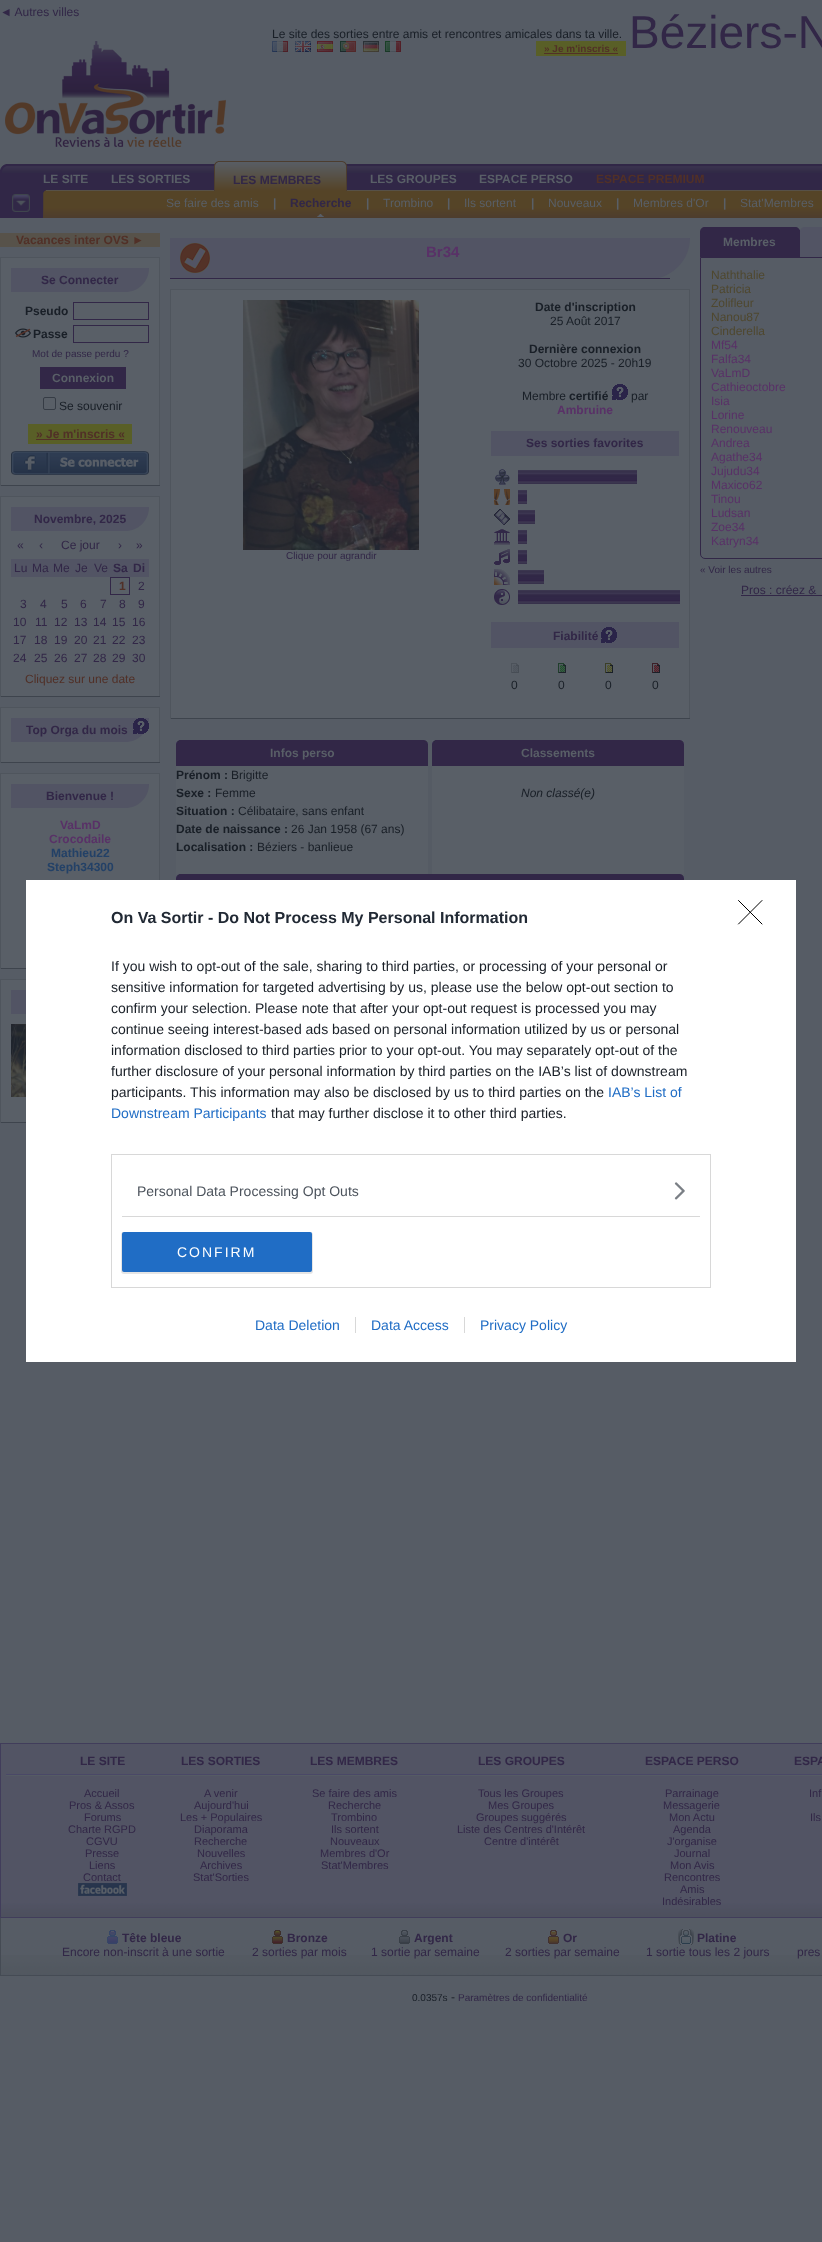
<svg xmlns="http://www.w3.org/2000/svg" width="822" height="2242">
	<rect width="100%" height="100%" fill="#565C65" />
	<text x="0" y="16" font-family="Liberation Sans" font-size="12" fill="#322747">◄ Autres villes</text>
	<image x="5" y="41" width="221" height="106" href="assets/img1.png" />
	<text x="272" y="38" font-family="Liberation Sans" font-size="12" fill="#191F27">Le site des sorties entre amis et rencontres amicales dans ta ville.</text>
	<image x="272" y="41" width="16" height="11" href="assets/img2.png" />
	<image x="295" y="41" width="16" height="11" href="assets/img3.png" />
	<image x="317" y="41" width="16" height="11" href="assets/img4.png" />
	<image x="340" y="41" width="16" height="11" href="assets/img5.png" />
	<image x="363" y="41" width="16" height="11" href="assets/img6.png" />
	<image x="385" y="41" width="16" height="11" href="assets/img7.png" />
	<rect x="536" y="41" width="90" height="15" fill="#595F27" />
	<text x="544" y="52" font-family="Liberation Sans" font-size="10" font-weight="700" fill="#513027">» Je m'inscris «</text>
	<rect x="544" y="53" width="74" height="1" fill="#513027" />
	<text x="629" y="48" font-family="Liberation Sans" font-size="46" fill="#322747">Béziers-N</text>
	<rect x="0" y="173" width="822" height="45" fill="#312747" />
	<image x="0" y="161" width="822" height="12" href="assets/img8.png" />
	<image x="0" y="164" width="7" height="9" href="assets/img9.png" />
	<g font-family="Liberation Sans" font-size="12" font-weight="700" fill="#595F67">
		<text x="43" y="183">LE SITE</text>
		<text x="111" y="183">LES SORTIES</text>
	</g>
	<image x="43" y="190" width="779" height="28" href="assets/img13.png" />
	<image x="214" y="161" width="4" height="30" href="assets/img10.png" />
	<image x="218" y="161" width="129" height="30" href="assets/img11.png" />
	<text x="233" y="184" font-family="Liberation Sans" font-size="12" font-weight="700" fill="#322747">LES MEMBRES</text>
	<g font-family="Liberation Sans" font-size="12" font-weight="700" fill="#595F67">
		<text x="370" y="183">LES GROUPES</text>
		<text x="479" y="183">ESPACE PERSO</text>
	</g>
	<text x="596" y="183" font-family="Liberation Sans" font-size="12" font-weight="700" fill="#513027">ESPACE PREMIUM</text>
	<image x="12" y="194" width="18" height="18" href="assets/img12.png" />
	<image x="43" y="190" width="3" height="27" href="assets/img14.png" />
	<text x="166" y="207" font-family="Liberation Sans" font-size="12" fill="#595F67">Se faire des amis</text>
	<text x="273" y="207" font-family="Liberation Sans" font-size="12" font-weight="700" fill="#595F67">|</text>
	<image x="317" y="214" width="7" height="3" href="assets/img15.png" />
	<text x="290" y="207" font-family="Liberation Sans" font-size="12" font-weight="700" fill="#322747">Recherche</text>
	<text x="366" y="207" font-family="Liberation Sans" font-size="12" font-weight="700" fill="#595F67">|</text>
	<text x="383" y="207" font-family="Liberation Sans" font-size="12" fill="#595F67">Trombino</text>
	<text x="447" y="207" font-family="Liberation Sans" font-size="12" font-weight="700" fill="#595F67">|</text>
	<text x="464" y="207" font-family="Liberation Sans" font-size="12" fill="#595F67">Ils sortent</text>
	<text x="531" y="207" font-family="Liberation Sans" font-size="12" font-weight="700" fill="#595F67">|</text>
	<text x="548" y="207" font-family="Liberation Sans" font-size="12" fill="#595F67">Nouveaux</text>
	<text x="616" y="207" font-family="Liberation Sans" font-size="12" font-weight="700" fill="#595F67">|</text>
	<text x="633" y="207" font-family="Liberation Sans" font-size="12" fill="#595F67">Membres d'Or</text>
	<text x="723" y="207" font-family="Liberation Sans" font-size="12" font-weight="700" fill="#595F67">|</text>
	<text x="740" y="207" font-family="Liberation Sans" font-size="12" fill="#595F67">Stat'Membres</text>
	<rect x="0" y="233" width="160" height="14" fill="#57524A" />
	<text x="16" y="244" font-family="Liberation Sans" font-size="12" font-weight="700" fill="#513027">Vacances inter OVS ►</text>
	<rect x="1" y="258" width="158" height="227" fill="#595F67" />
	<rect x="0" y="257" width="160" height="1" fill="#4F555D" />
	<rect x="159" y="257" width="1" height="229" fill="#4F555D" />
	<rect x="0" y="485" width="160" height="1" fill="#3E444D" />
	<rect x="0" y="257" width="1" height="229" fill="#4F555D" />
	<path d="M11 268H149C149 281.5 138.5 292 125 292H11Z" fill="#525464" />
	<text x="41" y="284" font-family="Liberation Sans" font-size="12" font-weight="700" fill="#322747">Se Connecter</text>
	<text x="25" y="315" font-family="Liberation Sans" font-size="12" font-weight="700" fill="#191F27">Pseudo</text>
	<rect x="73.5" y="302.5" width="75" height="17" fill="none" stroke="#322747" />
	<image x="15" y="328" width="16" height="10" href="assets/img16.png" />
	<text x="33" y="338" font-family="Liberation Sans" font-size="12" font-weight="700" fill="#191F27">Passe</text>
	<rect x="73.5" y="325.5" width="75" height="17" fill="none" stroke="#322747" />
	<text x="32" y="357" font-family="Liberation Sans" font-size="10" fill="#322747">Mot de passe perdu ?</text>
	<rect x="40" y="367" width="86" height="22" fill="#322747" />
	<text x="52" y="382" font-family="Liberation Sans" font-size="12" font-weight="700" fill="#595F67">Connexion</text>
	<rect x="43.5" y="397.5" width="12" height="12" rx="1.5" fill="none" stroke="#363C45" />
	<text x="59" y="410" font-family="Liberation Sans" font-size="12" fill="#191F27">Se souvenir</text>
	<rect x="28" y="424" width="104" height="20" fill="#595F27" />
	<text x="36" y="438" font-family="Liberation Sans" font-size="12" font-weight="700" fill="#513027">» Je m'inscris «</text>
	<rect x="36" y="439" width="88" height="1" fill="#513027" />
	<image x="11" y="451" width="138" height="24" href="assets/img17.png" />
	<rect x="1" y="497" width="158" height="199" fill="#595F67" />
	<rect x="0" y="496" width="160" height="1" fill="#4F555D" />
	<rect x="159" y="496" width="1" height="201" fill="#4F555D" />
	<rect x="0" y="696" width="160" height="1" fill="#3E444D" />
	<rect x="0" y="496" width="1" height="201" fill="#4F555D" />
	<path d="M11 507H149C149 520.5 138.5 531 125 531H11Z" fill="#525464" />
	<text x="34" y="523" font-family="Liberation Sans" font-size="12" font-weight="700" fill="#322747">Novembre, 2025</text>
	<g font-family="Liberation Sans" font-size="12" fill="#322747">
		<text x="17" y="549">«</text>
		<text x="39" y="549">‹</text>
		<text x="61" y="549">Ce jour</text>
		<text x="118" y="549">›</text>
		<text x="136" y="549">»</text>
	</g>
	<rect x="11" y="559" width="138" height="18" fill="#525464" />
	<g font-family="Liberation Sans" font-size="12" fill="#322747">
		<text x="14" y="572">Lu</text>
		<text x="32" y="572">Ma</text>
		<text x="53" y="572">Me</text>
		<text x="75" y="572">Je</text>
		<text x="94" y="572">Ve</text>
	</g>
	<g font-family="Liberation Sans" font-size="12" font-weight="700" fill="#322747">
		<text x="113" y="572">Sa</text>
		<text x="133" y="572">Di</text>
	</g>
	<rect x="110.5" y="577.5" width="19" height="17" fill="none" stroke="#322747" />
	<text x="119" y="590" font-family="Liberation Sans" font-size="12" font-weight="700" fill="#513027">1</text>
	<g font-family="Liberation Sans" font-size="12" fill="#322747">
		<text x="138" y="590">2</text>
		<text x="20" y="608">3</text>
		<text x="40" y="608">4</text>
		<text x="61" y="608">5</text>
		<text x="80" y="608">6</text>
		<text x="100" y="608">7</text>
		<text x="119" y="608">8</text>
		<text x="138" y="608">9</text>
		<text x="13" y="626">10</text>
		<text x="35" y="626">11</text>
		<text x="54" y="626">12</text>
		<text x="74" y="626">13</text>
		<text x="93" y="626">14</text>
		<text x="112" y="626">15</text>
		<text x="132" y="626">16</text>
		<text x="13" y="644">17</text>
		<text x="34" y="644">18</text>
		<text x="54" y="644">19</text>
		<text x="74" y="644">20</text>
		<text x="93" y="644">21</text>
		<text x="112" y="644">22</text>
		<text x="132" y="644">23</text>
		<text x="13" y="662">24</text>
		<text x="34" y="662">25</text>
		<text x="54" y="662">26</text>
		<text x="74" y="662">27</text>
		<text x="93" y="662">28</text>
		<text x="112" y="662">29</text>
		<text x="132" y="662">30</text>
	</g>
	<text x="25" y="683" font-family="Liberation Sans" font-size="12" fill="#513027">Cliquez sur une date</text>
	<rect x="1" y="708" width="158" height="54" fill="#595F67" />
	<rect x="0" y="707" width="160" height="1" fill="#4F555D" />
	<rect x="159" y="707" width="1" height="56" fill="#4F555D" />
	<rect x="0" y="762" width="160" height="1" fill="#3E444D" />
	<rect x="0" y="707" width="1" height="56" fill="#4F555D" />
	<path d="M11 718H149C149 731.5 138.5 742 125 742H11Z" fill="#525464" />
	<text x="26" y="734" font-family="Liberation Sans" font-size="12" font-weight="700" fill="#322747">Top Orga du mois</text>
	<image x="133" y="718" width="16" height="16" href="assets/img18.png" />
	<rect x="1" y="774" width="158" height="194" fill="#595F67" />
	<rect x="0" y="773" width="160" height="1" fill="#4F555D" />
	<rect x="159" y="773" width="1" height="107" fill="#4F555D" />
	<rect x="0" y="968" width="26" height="1" fill="#3E444D" />
	<rect x="0" y="773" width="1" height="196" fill="#4F555D" />
	<path d="M11 784H149C149 797.5 138.5 808 125 808H11Z" fill="#525464" />
	<text x="46" y="800" font-family="Liberation Sans" font-size="12" font-weight="700" fill="#322747">Bienvenue !</text>
	<g font-family="Liberation Sans" font-size="12" font-weight="700" fill="#593167">
		<text x="60" y="829">VaLmD</text>
		<text x="49" y="843">Crocodaile</text>
	</g>
	<g font-family="Liberation Sans" font-size="12" font-weight="700" fill="#234167">
		<text x="51" y="857">Mathieu22</text>
		<text x="47" y="871">Steph34300</text>
	</g>
	<rect x="1" y="980" width="25" height="142" fill="#595F67" />
	<rect x="0" y="979" width="26" height="1" fill="#4F555D" />
	<rect x="0" y="1122" width="26" height="1" fill="#3E444D" />
	<rect x="0" y="979" width="1" height="144" fill="#4F555D" />
	<rect x="11" y="990" width="15" height="24" fill="#525464" />
	<image x="11" y="1024" width="15" height="73" href="assets/img19.png" />
	<path d="M170 238H690C690 260.5 671.5 279 649 279H170Z" fill="#525464" />
	<rect x="170" y="278" width="500" height="1" fill="#322747" />
	<image x="180" y="243" width="30" height="30" href="assets/img20.png" />
	<text x="426" y="257" font-family="Liberation Sans" font-size="15" font-weight="700" fill="#593167">Br34</text>
	<rect x="171" y="290" width="518" height="428" fill="#595F67" />
	<rect x="170" y="289" width="520" height="1" fill="#4F555D" />
	<rect x="689" y="289" width="1" height="430" fill="#4F555D" />
	<rect x="170" y="718" width="520" height="1" fill="#3E444D" />
	<rect x="170" y="289" width="1" height="430" fill="#4F555D" />
	<image x="243" y="300" width="176" height="250" href="assets/img21.png" />
	<text x="286" y="559" font-family="Liberation Sans" font-size="10" fill="#322747">Clique pour agrandir</text>
	<text x="535" y="311" font-family="Liberation Sans" font-size="12" font-weight="700" fill="#191F27">Date d'inscription</text>
	<text x="550" y="325" font-family="Liberation Sans" font-size="12" fill="#191F27">25 Août 2017</text>
	<text x="529" y="353" font-family="Liberation Sans" font-size="12" font-weight="700" fill="#191F27">Dernière connexion</text>
	<g font-family="Liberation Sans" font-size="12" fill="#191F27">
		<text x="518" y="367">30 Octobre 2025 - 20h19</text>
		<text x="522" y="400">Membre</text>
	</g>
	<text x="569" y="400" font-family="Liberation Sans" font-size="12" font-weight="700" fill="#191F27">certifié</text>
	<image x="612" y="384" width="16" height="16" href="assets/img22.png" />
	<text x="631" y="400" font-family="Liberation Sans" font-size="12" fill="#191F27">par</text>
	<text x="557" y="414" font-family="Liberation Sans" font-size="12" font-weight="700" fill="#593167">Ambruine</text>
	<rect x="491" y="431" width="188" height="25" fill="#525464" />
	<text x="526" y="447" font-family="Liberation Sans" font-size="12" font-weight="700" fill="#322747">Ses sorties favorites</text>
	<image x="495" y="469" width="15" height="16" href="assets/img23.png" />
	<image x="518" y="470" width="119" height="14" href="assets/img24.png" />
	<image x="494" y="489" width="16" height="16" href="assets/img25.png" />
	<image x="518" y="490" width="9" height="14" href="assets/img26.png" />
	<image x="494" y="509" width="16" height="16" href="assets/img27.png" />
	<image x="518" y="510" width="17" height="14" href="assets/img28.png" />
	<image x="494" y="529" width="16" height="16" href="assets/img29.png" />
	<image x="518" y="530" width="9" height="14" href="assets/img26.png" />
	<image x="494" y="549" width="16" height="16" href="assets/img30.png" />
	<image x="518" y="550" width="9" height="14" href="assets/img26.png" />
	<image x="494" y="569" width="16" height="16" href="assets/img31.png" />
	<image x="518" y="570" width="26" height="14" href="assets/img32.png" />
	<image x="494" y="589" width="16" height="16" href="assets/img33.png" />
	<image x="518" y="590" width="162" height="14" href="assets/img34.png" />
	<rect x="491" y="622" width="188" height="26" fill="#525464" />
	<text x="553" y="640" font-family="Liberation Sans" font-size="12" font-weight="700" fill="#322747">Fiabilité</text>
	<image x="601" y="627" width="16" height="16" href="assets/img35.png" />
	<image x="511" y="663" width="8" height="10" href="assets/img36.png" />
	<image x="558" y="663" width="8" height="10" href="assets/img37.png" />
	<image x="605" y="663" width="8" height="10" href="assets/img38.png" />
	<image x="652" y="663" width="8" height="10" href="assets/img39.png" />
	<g font-family="Liberation Sans" font-size="12" fill="#191F27">
		<text x="511" y="689">0</text>
		<text x="558" y="689">0</text>
		<text x="605" y="689">0</text>
		<text x="652" y="689">0</text>
	</g>
	<rect x="176" y="766" width="508" height="108" fill="#595F67" />
	<rect x="176" y="740" width="252" height="26" fill="#322747" />
	<image x="176" y="740" width="4" height="4" href="assets/img40.png" />
	<image x="424" y="740" width="4" height="4" href="assets/img41.png" />
	<text x="270" y="757" font-family="Liberation Sans" font-size="12" font-weight="700" fill="#595F67">Infos perso</text>
	<rect x="432" y="740" width="252" height="26" fill="#322747" />
	<image x="432" y="740" width="4" height="4" href="assets/img40.png" />
	<image x="680" y="740" width="4" height="4" href="assets/img41.png" />
	<text x="521" y="757" font-family="Liberation Sans" font-size="12" font-weight="700" fill="#595F67">Classements</text>
	<rect x="428" y="766" width="4" height="108" fill="#555B64" />
	<text x="176" y="779" font-family="Liberation Sans" font-size="12" font-weight="700" fill="#191F27">Prénom :</text>
	<text x="231" y="779" font-family="Liberation Sans" font-size="12" fill="#191F27">Brigitte</text>
	<text x="176" y="797" font-family="Liberation Sans" font-size="12" font-weight="700" fill="#191F27">Sexe :</text>
	<text x="215" y="797" font-family="Liberation Sans" font-size="12" fill="#191F27">Femme</text>
	<text x="176" y="815" font-family="Liberation Sans" font-size="12" font-weight="700" fill="#191F27">Situation :</text>
	<text x="238" y="815" font-family="Liberation Sans" font-size="12" fill="#191F27">Célibataire, sans enfant</text>
	<text x="176" y="833" font-family="Liberation Sans" font-size="12" font-weight="700" fill="#191F27">Date de naissance :</text>
	<text x="291" y="833" font-family="Liberation Sans" font-size="12" fill="#191F27">26 Jan 1958 (67 ans)</text>
	<text x="176" y="851" font-family="Liberation Sans" font-size="12" font-weight="700" fill="#191F27">Localisation :</text>
	<text x="257" y="851" font-family="Liberation Sans" font-size="12" fill="#191F27">Béziers - banlieue</text>
	<text x="521" y="797" font-family="Liberation Sans" font-size="12" font-style="italic" fill="#191F27">Non classé(e)</text>
	<rect x="176" y="874" width="508" height="6" fill="#322747" />
	<image x="176" y="874" width="4" height="4" href="assets/img40.png" />
	<image x="680" y="874" width="4" height="4" href="assets/img41.png" />
	<path d="M705 227H795C798 227 800 229 800 232V257H700V232C700 229 702 227 705 227Z" fill="#322747" />
	<rect x="799" y="230" width="1" height="2" fill="#322747" />
	<text x="723" y="246" font-family="Liberation Sans" font-size="12" font-weight="700" fill="#595F67">Membres</text>
	<path d="M805 227H822C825 227 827 229 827 232V257H800V232C800 229 802 227 805 227Z" fill="#525464" />
	<path d="M700.5 257.5H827.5V554C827.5 556.5 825.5 558.5 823 558.5H705C702.5 558.5 700.5 556.5 700.5 554Z" fill="none" stroke="#322747" />
	<g font-family="Liberation Sans" font-size="12" fill="#4F482F">
		<text x="711" y="279">Naththalie</text>
		<text x="711" y="293">Patricia</text>
		<text x="711" y="307">Zolifleur</text>
		<text x="711" y="321">Nanou87</text>
		<text x="711" y="335">Cinderella</text>
	</g>
	<g font-family="Liberation Sans" font-size="12" fill="#593167">
		<text x="711" y="349">Mf54</text>
		<text x="711" y="363">Falfa34</text>
		<text x="711" y="377">VaLmD</text>
		<text x="711" y="391">Cathieoctobre</text>
		<text x="711" y="405">Isia</text>
		<text x="711" y="419">Lorine</text>
		<text x="711" y="433">Renouveau</text>
		<text x="711" y="447">Andrea</text>
		<text x="711" y="461">Agathe34</text>
		<text x="711" y="475">Jujudu34</text>
		<text x="711" y="489">Maxico62</text>
		<text x="711" y="503">Tinou</text>
		<text x="711" y="517">Ludsan</text>
		<text x="711" y="531">Zoe34</text>
		<text x="711" y="545">Katryn34</text>
	</g>
	<text x="700" y="573" font-family="Liberation Sans" font-size="10" fill="#322747">« Voir les autres</text>
	<text x="741" y="594" font-family="Liberation Sans" font-size="12" fill="#322747">Pros : créez &amp;</text>
	<rect x="741" y="595" width="81" height="1" fill="#322747" />
	<rect x="1" y="1744" width="821" height="159" fill="#525464" />
	<image x="1" y="1903" width="821" height="14" href="assets/img42.png" />
	<rect x="0.5" y="1743.5" width="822" height="174" fill="none" stroke="#413D5B" />
	<image x="6" y="1774" width="816" height="2" href="assets/img43.png" />
	<text x="80" y="1765" font-family="Liberation Sans" font-size="12" font-weight="700" fill="#322747">LE SITE</text>
	<g font-family="Liberation Sans" font-size="11" fill="#322747">
		<text x="84" y="1797">Accueil</text>
		<text x="69" y="1809">Pros &amp; Assos</text>
		<text x="84" y="1821">Forums</text>
		<text x="68" y="1833">Charte RGPD</text>
		<text x="86" y="1845">CGVU</text>
		<text x="85" y="1857">Presse</text>
		<text x="89" y="1869">Liens</text>
		<text x="83" y="1881">Contact</text>
	</g>
	<image x="78" y="1883" width="49" height="13" href="assets/img44.png" />
	<text x="181" y="1765" font-family="Liberation Sans" font-size="12" font-weight="700" fill="#322747">LES SORTIES</text>
	<g font-family="Liberation Sans" font-size="11" fill="#322747">
		<text x="204" y="1797">A venir</text>
		<text x="194" y="1809">Aujourd'hui</text>
		<text x="180" y="1821">Les + Populaires</text>
		<text x="194" y="1833">Diaporama</text>
		<text x="194" y="1845">Recherche</text>
		<text x="197" y="1857">Nouvelles</text>
		<text x="200" y="1869">Archives</text>
		<text x="193" y="1881">Stat'Sorties</text>
	</g>
	<text x="310" y="1765" font-family="Liberation Sans" font-size="12" font-weight="700" fill="#322747">LES MEMBRES</text>
	<g font-family="Liberation Sans" font-size="11" fill="#322747">
		<text x="312" y="1797">Se faire des amis</text>
		<text x="328" y="1809">Recherche</text>
		<text x="331" y="1821">Trombino</text>
		<text x="331" y="1833">Ils sortent</text>
		<text x="330" y="1845">Nouveaux</text>
		<text x="320" y="1857">Membres d'Or</text>
		<text x="321" y="1869">Stat'Membres</text>
	</g>
	<text x="478" y="1765" font-family="Liberation Sans" font-size="12" font-weight="700" fill="#322747">LES GROUPES</text>
	<g font-family="Liberation Sans" font-size="11" fill="#322747">
		<text x="478" y="1797">Tous les Groupes</text>
		<text x="488" y="1809">Mes Groupes</text>
		<text x="476" y="1821">Groupes suggérés</text>
		<text x="457" y="1833">Liste des Centres d'Intérêt</text>
		<text x="484" y="1845">Centre d'intérêt</text>
	</g>
	<text x="645" y="1765" font-family="Liberation Sans" font-size="12" font-weight="700" fill="#322747">ESPACE PERSO</text>
	<g font-family="Liberation Sans" font-size="11" fill="#322747">
		<text x="665" y="1797">Parrainage</text>
		<text x="663" y="1809">Messagerie</text>
		<text x="669" y="1821">Mon Actu</text>
		<text x="673" y="1833">Agenda</text>
		<text x="667" y="1845">J'organise</text>
		<text x="674" y="1857">Journal</text>
		<text x="670" y="1869">Mon Avis</text>
		<text x="664" y="1881">Rencontres</text>
		<text x="680" y="1893">Amis</text>
		<text x="662" y="1905">Indésirables</text>
	</g>
	<text x="794" y="1765" font-family="Liberation Sans" font-size="12" font-weight="700" fill="#322747">ESPA</text>
	<g font-family="Liberation Sans" font-size="11" fill="#322747">
		<text x="809" y="1797">Inf</text>
		<text x="810" y="1821">Ils</text>
	</g>
	<image x="1" y="1955" width="821" height="20" href="assets/img45.png" />
	<rect x="0" y="1975" width="822" height="1" fill="#454B54" />
	<rect x="0" y="1918" width="1" height="58" fill="#454B54" />
	<image x="107" y="1930" width="11" height="14" href="assets/img46.png" />
	<text x="122" y="1942" font-family="Liberation Sans" font-size="12" font-weight="700" fill="#322747">Tête bleue</text>
	<text x="62" y="1956" font-family="Liberation Sans" font-size="12" fill="#322747">Encore non-inscrit à une sortie</text>
	<image x="272" y="1930" width="11" height="14" href="assets/img47.png" />
	<text x="287" y="1942" font-family="Liberation Sans" font-size="12" font-weight="700" fill="#322747">Bronze</text>
	<text x="252" y="1956" font-family="Liberation Sans" font-size="12" fill="#322747">2 sorties par mois</text>
	<image x="399" y="1930" width="11" height="14" href="assets/img48.png" />
	<text x="414" y="1942" font-family="Liberation Sans" font-size="12" font-weight="700" fill="#322747">Argent</text>
	<text x="371" y="1956" font-family="Liberation Sans" font-size="12" fill="#322747">1 sortie par semaine</text>
	<image x="548" y="1930" width="11" height="14" href="assets/img49.png" />
	<text x="563" y="1942" font-family="Liberation Sans" font-size="12" font-weight="700" fill="#322747">Or</text>
	<text x="505" y="1956" font-family="Liberation Sans" font-size="12" fill="#322747">2 sorties par semaine</text>
	<image x="678" y="1929" width="16" height="16" href="assets/img50.png" />
	<text x="697" y="1942" font-family="Liberation Sans" font-size="12" font-weight="700" fill="#322747">Platine</text>
	<g font-family="Liberation Sans" font-size="12" fill="#322747">
		<text x="646" y="1956">1 sortie tous les 2 jours</text>
		<text x="797" y="1956">pres</text>
	</g>
	<text x="412" y="2001" font-family="Liberation Sans" font-size="10" fill="#191F27">0.0357s</text>
	<text x="451" y="2001" font-family="Liberation Sans" font-size="12" fill="#191F27">-</text>
	<text x="458" y="2001" font-family="Liberation Sans" font-size="10" fill="#322747">Paramètres de confidentialité</text>
	<rect x="26" y="880" width="770" height="482" fill="#FFFFFF" />
	<text x="111" y="923" font-family="Liberation Sans" font-size="16" font-weight="700" fill="#212934">On Va Sortir - Do Not Process My Personal Information</text>
	<g font-family="Liberation Sans" font-size="14" fill="#191F27">
		<text x="111" y="971">If you wish to opt-out of the sale, sharing to third parties, or processing of your personal or</text>
		<text x="111" y="992">sensitive information for targeted advertising by us, please use the below opt-out section to</text>
		<text x="111" y="1013">confirm your selection. Please note that after your opt-out request is processed you may</text>
		<text x="111" y="1034">continue seeing interest-based ads based on personal information utilized by us or personal</text>
		<text x="111" y="1055">information disclosed to third parties prior to your opt-out. You may separately opt-out of the</text>
		<text x="111" y="1076">further disclosure of your personal information by third parties on the IAB’s list of downstream</text>
		<text x="111" y="1097">participants. This information may also be disclosed by us to third parties on the</text>
	</g>
	<g font-family="Liberation Sans" font-size="14" fill="#206DC5">
		<text x="608" y="1097">IAB’s List of</text>
		<text x="111" y="1118">Downstream Participants</text>
	</g>
	<text x="271" y="1118" font-family="Liberation Sans" font-size="14" fill="#191F27">that may further disclose it to other third parties.</text>
	<rect x="111.5" y="1154.5" width="599" height="133" fill="none" stroke="#D8D8D8" />
	<rect x="122" y="1216" width="578" height="1" fill="#D8D8D8" />
	<text x="137" y="1196" font-family="Liberation Sans" font-size="14" fill="#4D545D">Personal Data Processing Opt Outs</text>
	<image x="674" y="1182" width="11" height="18" href="assets/img51.png" />
	<rect x="121" y="1232" width="192" height="42" rx="3" fill="#000000" fill-opacity="0.1" filter="blur(0.5px)" />
	<rect x="122" y="1232" width="190" height="40" rx="2" fill="#206DC5" />
	<text x="177" y="1257" font-family="Liberation Sans" font-size="14" letter-spacing="2" fill="#FFFFFF">CONFIRM</text>
	<path d="M738.5 900.5L762 924M762 900.5L738.5 924" fill="none" stroke="#000000" stroke-linecap="round" stroke-linejoin="round" />
	<g font-family="Liberation Sans" font-size="14" fill="#206DC5">
		<text x="255" y="1330">Data Deletion</text>
		<text x="371" y="1330">Data Access</text>
	</g>
	<rect x="355" y="1317" width="1" height="16" fill="#D8D8D8" />
	<text x="480" y="1330" font-family="Liberation Sans" font-size="14" fill="#206DC5">Privacy Policy</text>
	<rect x="464" y="1317" width="1" height="16" fill="#D8D8D8" />
</svg>
